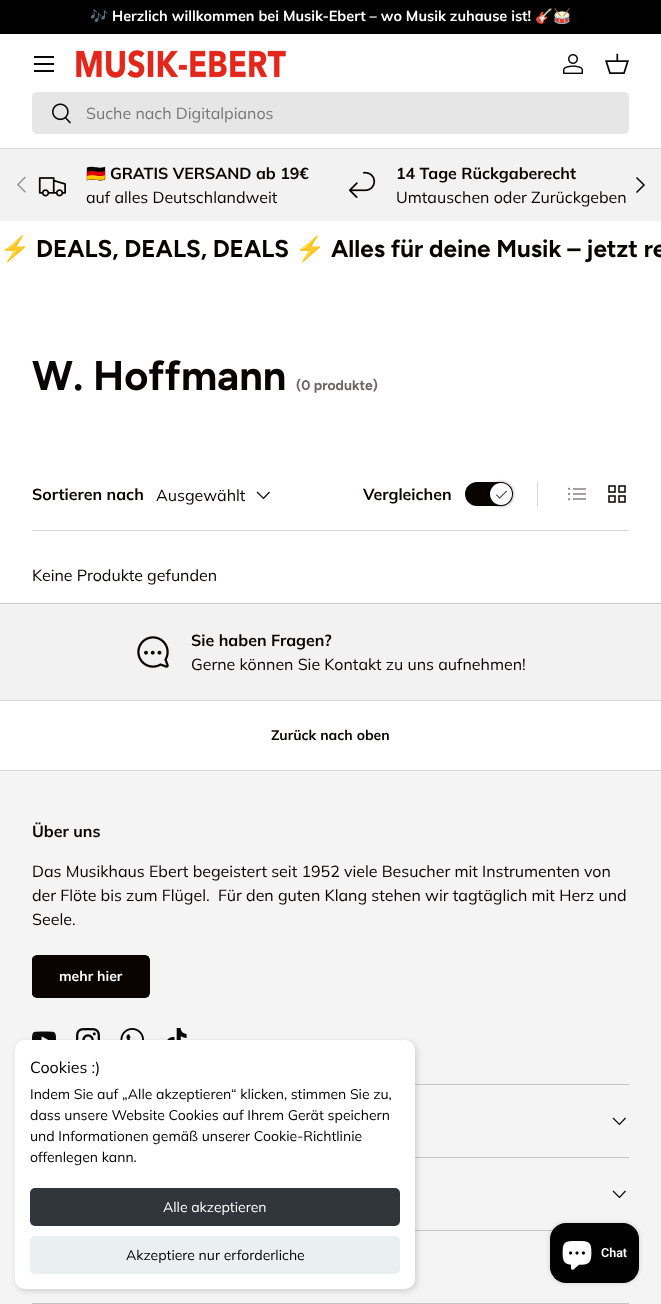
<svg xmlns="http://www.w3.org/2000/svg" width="661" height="1304">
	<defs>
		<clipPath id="clip1"><rect x="32" y="955" width="118" height="43" rx="5" /></clipPath>
		<linearGradient id="g1" gradientUnits="userSpaceOnUse" x1="-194" y1="934" x2="144" y2="1019"><stop offset="0.6" stop-color="#36302F" /><stop offset="0.6" stop-color="#090302" /><stop offset="1" stop-color="#090302" /></linearGradient>
	</defs>
	<rect width="100%" height="100%" fill="#FFFFFF" />
	<rect x="0" y="0" width="661" height="34" fill="#000000" />
	<text x="90" y="21" font-family="Noto Color Emoji" font-size="14.4" fill="#FFFFFF">🎶</text>
	<text x="112" y="21" font-family="Muli" font-size="14.4" font-weight="700" fill="#FFFFFF">Herzlich willkommen bei Musik-Ebert – wo Musik zuhause ist!</text>
	<text x="535" y="21" font-family="Noto Color Emoji" font-size="14.4" fill="#FFFFFF">🎸🥁</text>
	<rect x="0" y="148" width="661" height="1" fill="#DADADA" />
	<rect x="34" y="56" width="20" height="2" fill="#070707" />
	<rect x="34" y="70" width="20" height="2" fill="#070707" />
	<rect x="34" y="63" width="20" height="2" fill="#070707" />
	<image x="76" y="50" width="210" height="28" href="assets/img1.png" />
	<image x="563" y="54" width="20" height="20" href="assets/img2.png" />
	<image x="605" y="53" width="24" height="21" href="assets/img3.png" />
	<rect x="32" y="92" width="597" height="42" rx="5" fill="#E6E6E6" />
	<image x="52" y="103" width="19" height="21" href="assets/img4.png" />
	<text x="86" y="119" font-family="Muli" font-size="16" fill="#777777">Suche nach Digitalpianos</text>
	<rect x="0" y="149" width="661" height="72" fill="#F2F2F2" />
	<image x="38" y="177" width="28" height="20" href="assets/img5.png" />
	<text x="86" y="179" font-family="Noto Color Emoji" font-size="16" font-weight="700" fill="#090302">🇩🇪</text>
	<text x="110" y="179" font-family="Muli" font-size="16" font-weight="700" fill="#090302">GRATIS VERSAND ab 19€</text>
	<text x="86" y="203" font-family="Muli" font-size="16" fill="#090302">auf alles Deutschlandweit</text>
	<image x="348" y="171" width="28" height="27" href="assets/img6.png" />
	<text x="396" y="179" font-family="Muli" font-size="16" font-weight="700" fill="#090302">14 Tage Rückgaberecht</text>
	<text x="396" y="203" font-family="Muli" font-size="16" fill="#090302">Umtauschen oder Zurückgeben</text>
	<image x="17" y="176" width="9" height="17" href="assets/img7.png" />
	<path d="M636.5 177.5L644 185L636.5 192.5" fill="none" stroke="#090302" stroke-width="1.5" />
	<text x="0" y="257" font-family="Noto Color Emoji" font-size="24.25" font-weight="700" fill="#090302">⚡</text>
	<text x="36" y="257" font-family="Figtree" font-size="24.25" font-weight="700" fill="#090302">DEALS, DEALS, DEALS</text>
	<text x="295" y="257" font-family="Noto Color Emoji" font-size="24.25" font-weight="700" fill="#090302">⚡</text>
	<text x="331" y="257" font-family="Figtree" font-size="24.25" font-weight="700" fill="#090302">Alles für deine Musik – jetzt re</text>
	<text x="32" y="390" font-family="Figtree" font-size="41.5" font-weight="700" fill="#090302">W. Hoffmann</text>
	<text x="296" y="390" font-family="Figtree" font-size="14" font-weight="700" fill="#6B6867">(0 produkte)</text>
	<rect x="32" y="530" width="597" height="1" fill="#DAD9D9" />
	<text x="32" y="500" font-family="Muli" font-size="16" font-weight="700" fill="#090302">Sortieren nach</text>
	<text x="156" y="501" font-family="Muli" font-size="16" fill="#090302">Ausgewählt</text>
	<path d="M269.5 492L263.5 498.5L257 492" fill="none" stroke="#090302" stroke-width="1.2" />
	<rect x="465" y="482" width="48" height="24" rx="12" fill="#090302" />
	<rect x="488" y="481" width="26" height="26" rx="13" fill="#000000" fill-opacity="0.25" filter="blur(1px)" />
	<circle cx="501" cy="494" r="11" fill="#FFFFFF" />
	<image x="496" y="490" width="11" height="9" href="assets/img8.png" />
	<text x="363" y="500" font-family="Muli" font-size="16" font-weight="700" fill="#090302">Vergleichen</text>
	<rect x="537" y="482" width="1" height="24" fill="#DAD9D9" />
	<image x="568" y="487" width="18" height="14" href="assets/img9.png" />
	<image x="608" y="485" width="18" height="18" href="assets/img10.png" />
	<text x="32" y="581" font-family="Muli" font-size="16" fill="#090302">Keine Produkte gefunden</text>
	<rect x="0" y="604" width="661" height="96" fill="#F2F2F2" />
	<rect x="0" y="603" width="661" height="1" fill="#CFCECE" />
	<image x="137" y="636" width="32" height="32" href="assets/img11.png" />
	<text x="191" y="646" font-family="Muli" font-size="16" font-weight="700" fill="#090302">Sie haben Fragen?</text>
	<text x="191" y="670" font-family="Muli" font-size="16" fill="#090302">Gerne können Sie Kontakt zu uns aufnehmen!</text>
	<rect x="0" y="700" width="661" height="1" fill="#DAD9D9" />
	<rect x="0" y="770" width="661" height="1" fill="#DAD9D9" />
	<text x="271" y="740" font-family="Muli" font-size="14" font-weight="700" fill="#090302">Zurück nach oben</text>
	<rect x="0" y="771" width="661" height="533" fill="#F4F4F4" />
	<text x="32" y="837" font-family="Muli" font-size="16" font-weight="700" fill="#090302">Über uns</text>
	<g font-family="Muli" font-size="16" fill="#090302">
		<text x="32" y="877">Das Musikhaus Ebert begeistert seit 1952 viele Besucher mit Instrumenten von</text>
		<text x="32" y="901" xml:space="preserve">der Flöte bis zum Flügel.  Für den guten Klang stehen wir tagtäglich mit Herz und</text>
		<text x="32" y="925">Seele.</text>
	</g>
	<g clip-path="url(#clip1)">
		<rect x="32" y="956" width="117" height="41" fill="url(#g1)" />
	</g>
	<rect x="32.5" y="955.5" width="117" height="42" rx="4.5" fill="none" stroke="#090302" />
	<text x="59" y="981" font-family="Muli" font-size="14" font-weight="700" fill="#FFFFFF">mehr hier</text>
	<image x="32" y="1031" width="24" height="9" href="assets/img12.png" />
	<image x="76" y="1028" width="24" height="12" href="assets/img13.png" />
	<image x="120" y="1028" width="24" height="12" href="assets/img14.png" />
	<image x="167" y="1028" width="20" height="12" href="assets/img15.png" />
	<rect x="415" y="1084" width="214" height="1" fill="#C5C5C5" />
	<rect x="415" y="1157" width="214" height="1" fill="#C5C5C5" />
	<path d="M625.5 1118L619.5 1124.5L613 1118" fill="none" stroke="#070707" stroke-width="1.2" />
	<rect x="415" y="1230" width="138" height="1" fill="#C5C5C5" />
	<path d="M625.5 1191L619.5 1197.5L613 1191" fill="none" stroke="#070707" stroke-width="1.2" />
	<rect x="32" y="1303" width="597" height="1" fill="#C5C5C5" />
	<rect x="17" y="1042" width="400" height="249" rx="10" fill="#000000" fill-opacity="0.15" filter="blur(3px)" />
	<rect x="15" y="1040" width="400" height="249" rx="10" fill="#FFFFFF" />
	<text x="30" y="1073" font-family="Muli" font-size="16" fill="#000000">Cookies :)</text>
	<g font-family="Muli" font-size="14" fill="#000000">
		<text x="30" y="1099">Indem Sie auf „Alle akzeptieren“ klicken, stimmen Sie zu,</text>
		<text x="30" y="1120">dass unsere Website Cookies auf Ihrem Gerät speichern</text>
		<text x="30" y="1141">und Informationen gemäß unserer Cookie-Richtlinie</text>
		<text x="30" y="1162">offenlegen kann.</text>
	</g>
	<rect x="30" y="1188" width="370" height="38" rx="5" fill="#30363C" />
	<text x="163" y="1212" font-family="Muli" font-size="14" fill="#FFFFFF">Alle akzeptieren</text>
	<rect x="30" y="1236" width="370" height="38" rx="5" fill="#EAEFF2" />
	<text x="126" y="1260" font-family="Muli" font-size="14" fill="#000000">Akzeptiere nur erforderliche</text>
	<rect x="550" y="1223" width="89" height="60" rx="16" fill="#000000" fill-opacity="0.15" filter="blur(2.5px)" />
	<rect x="550" y="1223" width="89" height="60" rx="16" fill="#000000" />
	<image x="562" y="1241" width="30" height="29" href="assets/img16.png" />
	<text x="601" y="1257" font-family="Roboto" font-size="12.5" font-weight="600" fill="#FFFFFF">Chat</text>
</svg>
